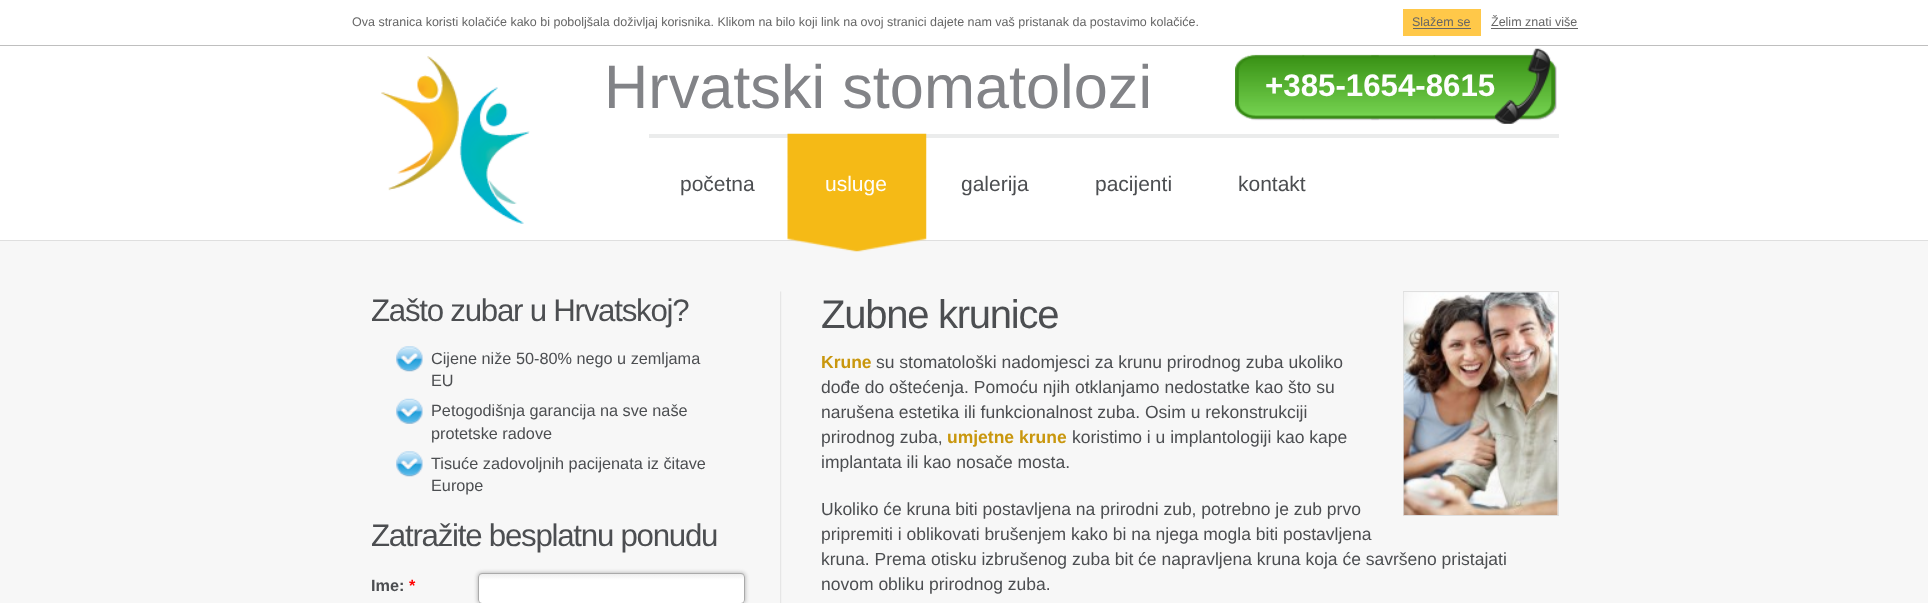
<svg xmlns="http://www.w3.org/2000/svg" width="1928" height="603">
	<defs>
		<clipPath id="clip1"><rect x="478" y="573" width="267" height="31" rx="4" /></clipPath>
		<linearGradient id="g1" gradientUnits="userSpaceOnUse" x1="479" y1="574" x2="479" y2="603"><stop offset="0" stop-color="#EEEEEE" /><stop offset="0.2" stop-color="#FFFFFF" /><stop offset="1" stop-color="#FFFFFF" /></linearGradient>
	</defs>
	<rect width="100%" height="100%" fill="#FFFFFF" />
	<rect x="0" y="45" width="1928" height="1" fill="#BFBFBF" />
	<text x="352" y="26" font-family="Liberation Sans" font-size="12.5" fill="#666666">Ova stranica koristi kolačiće kako bi poboljšala doživljaj korisnika. Klikom na bilo koji link na ovoj stranici dajete nam vaš pristanak da postavimo kolačiće.</text>
	<rect x="1403" y="9" width="78" height="27" fill="#FFC849" />
	<text x="1412" y="26" font-family="Liberation Sans" font-size="12.5" fill="#666666">Slažem se</text>
	<rect x="1413" y="28" width="58" height="1" fill="#666666" />
	<text x="1491" y="26" font-family="Liberation Sans" font-size="12.5" fill="#666666">Želim znati više</text>
	<rect x="1491" y="28" width="87" height="1" fill="#666666" />
	<image x="381" y="56" width="149" height="168" href="assets/img1.png" />
	<text x="604" y="108" font-family="Liberation Sans" font-size="61.25" fill="#828387">Hrvatski stomatolozi</text>
	<image x="1235" y="48" width="322" height="76" href="assets/img2.png" />
	<text x="1265" y="96" font-family="Liberation Sans" font-size="31.25" font-weight="700" fill="#FEFEFE">+385-1654-8615</text>
	<rect x="649" y="134" width="910" height="4" fill="#EBECEC" />
	<text x="680" y="191" font-family="Liberation Sans" font-size="21" fill="#4C4E51">početna</text>
	<rect x="0" y="241" width="1928" height="362" fill="#F7F7F7" />
	<rect x="0" y="240" width="1928" height="1" fill="#DFDFDF" />
	<image x="787" y="133" width="140" height="119" href="assets/img3.png" />
	<text x="825" y="191" font-family="Liberation Sans" font-size="21" fill="#FEFEFE">usluge</text>
	<g font-family="Liberation Sans" font-size="21" fill="#4C4E51">
		<text x="961" y="191">galerija</text>
		<text x="1095" y="191">pacijenti</text>
		<text x="1238" y="191">kontakt</text>
	</g>
	<image x="780" y="291" width="2" height="312" href="assets/img4.png" />
	<text x="371" y="321" font-family="Liberation Sans" font-size="31.25" letter-spacing="-1.25" fill="#4C4E51">Zašto zubar u Hrvatskoj?</text>
	<image x="396" y="346" width="27" height="26" href="assets/img5.png" />
	<g font-family="Liberation Sans" font-size="16.25" fill="#4C4E51">
		<text x="431" y="364">Cijene niže 50-80% nego u zemljama</text>
		<text x="431" y="386">EU</text>
	</g>
	<image x="396" y="398" width="27" height="26" href="assets/img6.png" />
	<g font-family="Liberation Sans" font-size="16.25" fill="#4C4E51">
		<text x="431" y="416">Petogodišnja garancija na sve naše</text>
		<text x="431" y="439">protetske radove</text>
	</g>
	<image x="396" y="451" width="27" height="26" href="assets/img5.png" />
	<g font-family="Liberation Sans" font-size="16.25" fill="#4C4E51">
		<text x="431" y="469">Tisuće zadovoljnih pacijenata iz čitave</text>
		<text x="431" y="491">Europe</text>
	</g>
	<text x="371" y="546" font-family="Liberation Sans" font-size="31.25" letter-spacing="-1.25" fill="#4C4E51">Zatražite besplatnu ponudu</text>
	<text x="371" y="591" font-family="Liberation Sans" font-size="16.25" font-weight="700" fill="#4C4E51">Ime:</text>
	<text x="409" y="591" font-family="Liberation Sans" font-size="16.25" font-weight="700" fill="#FF0000">*</text>
	<rect x="478" y="573" width="267" height="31" rx="4" fill="#AAAAAA" filter="blur(2px)" />
	<g clip-path="url(#clip1)">
		<rect x="478" y="574" width="267" height="29" fill="url(#g1)" />
	</g>
	<rect x="478.5" y="573.5" width="266" height="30" rx="3.5" fill="none" stroke="#AAAAAA" />
	<text x="821" y="328" font-family="Liberation Sans" font-size="40" letter-spacing="-1.25" fill="#4C4E51">Zubne krunice</text>
	<rect x="1403.5" y="291.5" width="155" height="224" fill="none" stroke="#DFDFDF" />
	<image x="1403" y="292" width="155" height="223" href="assets/img7.png" />
	<text x="821" y="368" font-family="Liberation Sans" font-size="17.5" font-weight="700" fill="#C9970E">Krune</text>
	<g font-family="Liberation Sans" font-size="17.5" fill="#4C4E51">
		<text x="876" y="368">su stomatološki nadomjesci za krunu prirodnog zuba ukoliko</text>
		<text x="821" y="393">dođe do oštećenja. Pomoću njih otklanjamo nedostatke kao što su</text>
		<text x="821" y="418">narušena estetika ili funkcionalnost zuba. Osim u rekonstrukciji</text>
		<text x="821" y="443">prirodnog zuba,</text>
	</g>
	<text x="947" y="443" font-family="Liberation Sans" font-size="17.5" font-weight="700" fill="#C9970E">umjetne krune</text>
	<g font-family="Liberation Sans" font-size="17.5" fill="#4C4E51">
		<text x="1072" y="443">koristimo i u implantologiji kao kape</text>
		<text x="821" y="468">implantata ili kao nosače mosta.</text>
		<text x="821" y="515">Ukoliko će kruna biti postavljena na prirodni zub, potrebno je zub prvo</text>
		<text x="821" y="540">pripremiti i oblikovati brušenjem kako bi na njega mogla biti postavljena</text>
		<text x="821" y="565">kruna. Prema otisku izbrušenog zuba bit će napravljena kruna koja će savršeno pristajati</text>
		<text x="821" y="590">novom obliku prirodnog zuba.</text>
	</g>
</svg>
